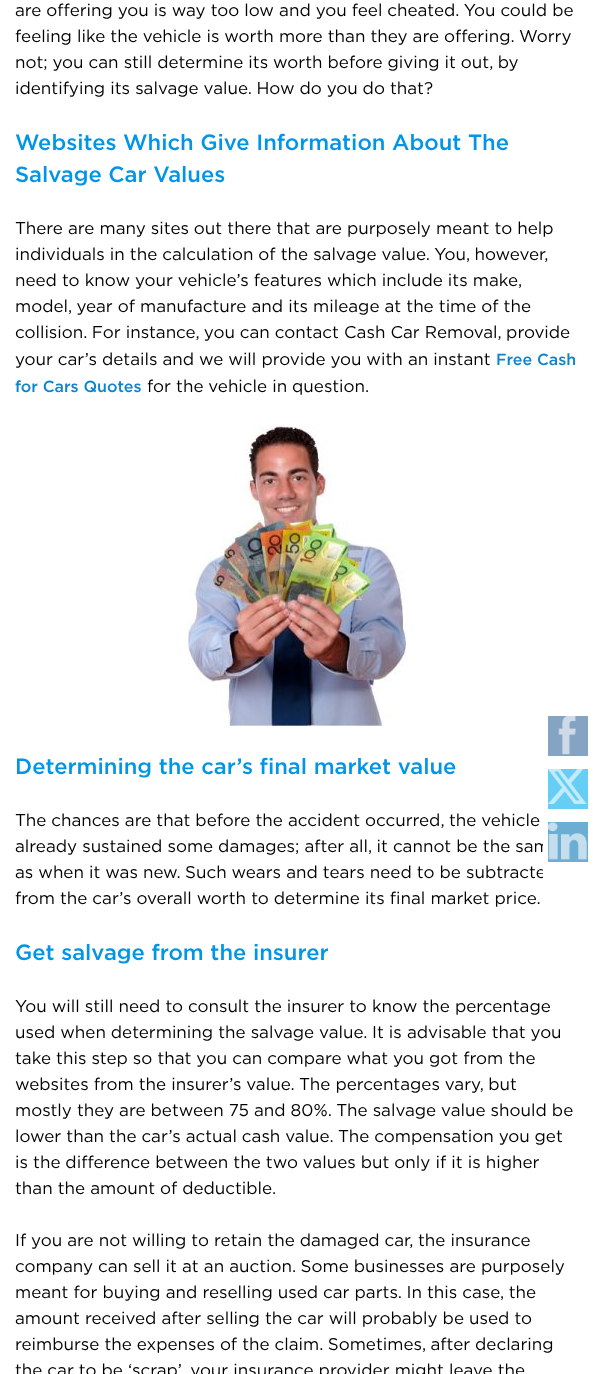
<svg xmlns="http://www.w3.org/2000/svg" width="593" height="1374">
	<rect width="100%" height="100%" fill="#FFFFFF" />
	<g font-family="Gotham" font-size="17" fill="#000000">
		<text x="15" y="16">are offering you is way too low and you feel cheated. You could be</text>
		<text x="15" y="42">feeling like the vehicle is worth more than they are offering. Worry</text>
		<text x="15" y="68">not; you can still determine its worth before giving it out, by</text>
		<text x="15" y="94">identifying its salvage value. How do you do that?</text>
	</g>
	<g font-family="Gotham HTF" font-size="22" font-weight="500" fill="#0095E7">
		<text x="15" y="150">Websites Which Give Information About The</text>
		<text x="15" y="182">Salvage Car Values</text>
	</g>
	<g font-family="Gotham" font-size="17" fill="#000000">
		<text x="15" y="234">There are many sites out there that are purposely meant to help</text>
		<text x="15" y="260">individuals in the calculation of the salvage value. You, however,</text>
		<text x="15" y="286">need to know your vehicle’s features which include its make,</text>
		<text x="15" y="312">model, year of manufacture and its mileage at the time of the</text>
		<text x="15" y="338">collision. For instance, you can contact Cash Car Removal, provide</text>
		<text x="15" y="365">your car’s details and we will provide you with an instant</text>
	</g>
	<g font-family="Gotham HTF" font-size="16" font-weight="500" fill="#0D84CE">
		<text x="496" y="365">Free Cash</text>
		<text x="15" y="392">for Cars Quotes</text>
	</g>
	<text x="147" y="392" font-family="Gotham" font-size="17" fill="#000000">for the vehicle in question.</text>
	<image x="188" y="426" width="218" height="300" href="assets/img1.png" />
	<text x="15" y="774" font-family="Gotham HTF" font-size="22" font-weight="500" fill="#0095E7">Determining the car’s final market value</text>
	<g font-family="Gotham" font-size="17" fill="#000000">
		<text x="15" y="826">The chances are that before the accident occurred, the vehicle</text>
		<text x="15" y="852">already sustained some damages; after all, it cannot be the sam</text>
		<text x="15" y="878">as when it was new. Such wears and tears need to be subtracte</text>
		<text x="15" y="904">from the car’s overall worth to determine its final market price.</text>
	</g>
	<text x="15" y="960" font-family="Gotham HTF" font-size="22" font-weight="500" fill="#0095E7">Get salvage from the insurer</text>
	<g font-family="Gotham" font-size="17" fill="#000000">
		<text x="15" y="1012">You will still need to consult the insurer to know the percentage</text>
		<text x="15" y="1038">used when determining the salvage value. It is advisable that you</text>
		<text x="15" y="1064">take this step so that you can compare what you got from the</text>
		<text x="15" y="1090">websites from the insurer’s value. The percentages vary, but</text>
		<text x="15" y="1116">mostly they are between 75 and 80%. The salvage value should be</text>
		<text x="15" y="1142">lower than the car’s actual cash value. The compensation you get</text>
		<text x="15" y="1168">is the difference between the two values but only if it is higher</text>
		<text x="15" y="1194">than the amount of deductible.</text>
		<text x="15" y="1246">If you are not willing to retain the damaged car, the insurance</text>
		<text x="15" y="1272">company can sell it at an auction. Some businesses are purposely</text>
		<text x="15" y="1298">meant for buying and reselling used car parts. In this case, the</text>
		<text x="15" y="1324">amount received after selling the car will probably be used to</text>
		<text x="15" y="1350">reimburse the expenses of the claim. Sometimes, after declaring</text>
		<text x="15" y="1376">the car to be ‘scrap’, your insurance provider might leave the</text>
	</g>
	<rect x="543" y="843" width="6" height="35" fill="#FFFFFF" />
	<rect x="548" y="716" width="40" height="40" fill="#85A3C2" />
	<image x="558" y="716" width="18" height="39" href="assets/img2.png" />
	<rect x="548" y="769" width="40" height="40" fill="#66CDF4" />
	<image x="548" y="769" width="39" height="35" href="assets/img3.png" />
	<rect x="548" y="822" width="40" height="40" fill="#6BADD3" />
	<image x="548" y="822" width="39" height="38" href="assets/img4.png" />
</svg>
